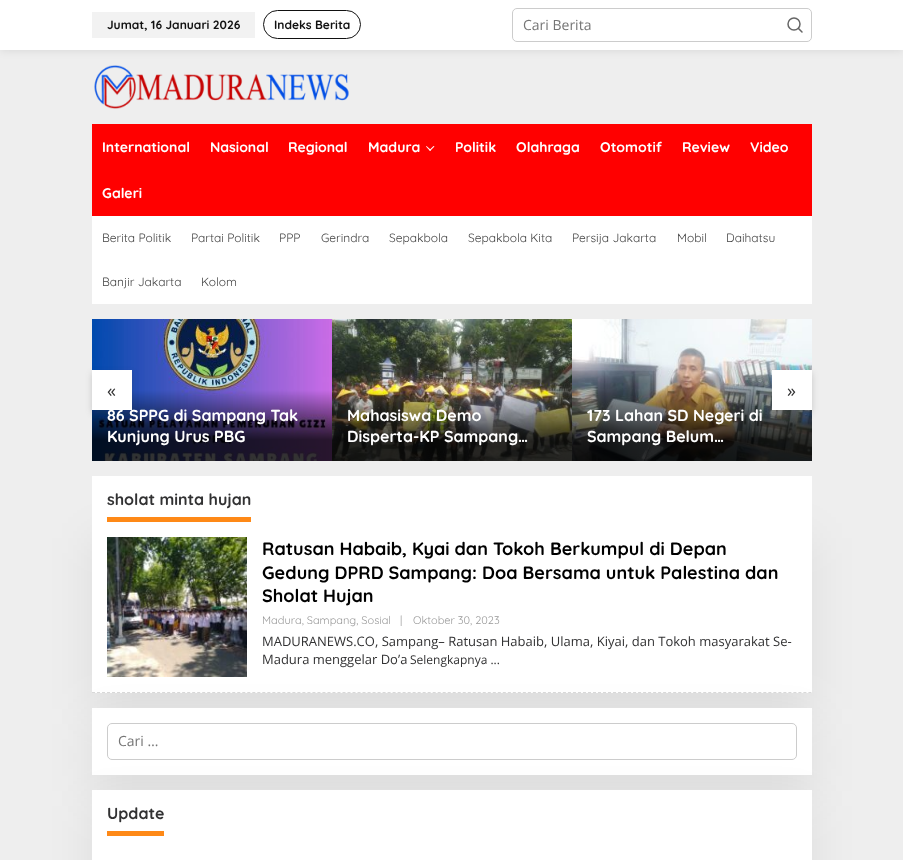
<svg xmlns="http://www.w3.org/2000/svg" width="903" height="860">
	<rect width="100%" height="100%" fill="#EEEEEE" />
	<image x="94" y="65" width="255" height="44" href="assets/img1.png" />
	<rect x="0" y="0" width="903" height="50" fill="#000000" fill-opacity="0.1" filter="blur(5px)" />
	<rect x="0" y="0" width="903" height="50" fill="#FFFFFF" />
	<rect x="92" y="12" width="163" height="26" fill="#F2F2F2" />
	<text x="107" y="29" font-family="Quicksand" font-size="12" font-weight="700" fill="#111111">Jumat, 16 Januari 2026</text>
	<rect x="263.5" y="10.5" width="97" height="28" rx="14" fill="none" stroke="#111111" />
	<text x="274" y="29" font-family="Quicksand" font-size="12" font-weight="700" fill="#111111">Indeks Berita</text>
	<rect x="512.5" y="8.5" width="299" height="33" rx="4.5" fill="none" stroke="#CCCCCC" />
	<text x="523" y="30" font-family="Open Sans" font-size="14" fill="#757575">Cari Berita</text>
	<circle cx="794" cy="24" r="6" fill="none" stroke="#666666" stroke-width="1.5" />
	<path d="M802 32L798.5 28.5" fill="none" stroke="#666666" stroke-width="1.5" stroke-linecap="round" stroke-linejoin="round" />
	<rect x="92" y="124" width="720" height="92" fill="#FF0000" />
	<g font-family="Quicksand" font-size="14" font-weight="700" fill="#FFFFFF">
		<text x="102" y="152">International</text>
		<text x="210" y="152">Nasional</text>
		<text x="288" y="152">Regional</text>
		<text x="368" y="152">Madura</text>
	</g>
	<path d="M433.5 146L434.5 146.5L430 151L429.5 150Z" fill="#FFFFFF" />
	<path d="M426.5 146L431 150L430 151L426 146.5Z" fill="#FFFFFF" />
	<g font-family="Quicksand" font-size="14" font-weight="700" fill="#FFFFFF">
		<text x="455" y="152">Politik</text>
		<text x="516" y="152">Olahraga</text>
		<text x="600" y="152">Otomotif</text>
		<text x="682" y="152">Review</text>
		<text x="750" y="152">Video</text>
		<text x="102" y="198">Galeri</text>
	</g>
	<rect x="92" y="216" width="720" height="88" fill="#FFFFFF" />
	<g font-family="Quicksand" font-size="12" fill="#444444">
		<text x="102" y="242">Berita Politik</text>
		<text x="191" y="242">Partai Politik</text>
		<text x="279" y="242">PPP</text>
		<text x="321" y="242">Gerindra</text>
		<text x="389" y="242">Sepakbola</text>
		<text x="468" y="242">Sepakbola Kita</text>
		<text x="572" y="242">Persija Jakarta</text>
		<text x="677" y="242">Mobil</text>
		<text x="726" y="242">Daihatsu</text>
		<text x="102" y="286">Banjir Jakarta</text>
		<text x="201" y="286">Kolom</text>
	</g>
	<image x="92" y="319" width="240" height="142" href="assets/img2.png" />
	<rect x="92" y="373" width="40" height="40" fill="#333333" fill-opacity="0.2" filter="blur(3px)" />
	<rect x="92" y="370" width="40" height="40" fill="#FFFFFF" />
	<text x="107" y="397" font-family="Open Sans" font-size="18" fill="#323233">«</text>
	<image x="572" y="319" width="240" height="142" href="assets/img4.png" />
	<rect x="772" y="373" width="40" height="40" fill="#333333" fill-opacity="0.2" filter="blur(3px)" />
	<rect x="772" y="370" width="40" height="40" fill="#FFFFFF" />
	<text x="787" y="397" font-family="Open Sans" font-size="18" fill="#323233">»</text>
	<g font-family="Quicksand" font-size="16" font-weight="700" fill="#FFFFFF">
		<text x="107" y="421">86 SPPG di Sampang Tak</text>
		<text x="107" y="442">Kunjung Urus PBG</text>
	</g>
	<image x="332" y="319" width="240" height="142" href="assets/img3.png" />
	<g font-family="Quicksand" font-size="16" font-weight="700" fill="#FFFFFF">
		<text x="347" y="421">Mahasiswa Demo</text>
		<text x="347" y="442">Disperta-KP Sampang…</text>
		<text x="587" y="421">173 Lahan SD Negeri di</text>
		<text x="587" y="442">Sampang Belum…</text>
	</g>
	<rect x="92" y="538" width="720" height="171" fill="#000000" fill-opacity="0.07" filter="blur(22.5px)" />
	<rect x="92" y="476" width="720" height="217" fill="#FFFFFF" />
	<rect x="107" y="517" width="144" height="5" fill="#FE8917" />
	<text x="107" y="505" font-family="Quicksand" font-size="16" font-weight="700" fill="#323233">sholat minta hujan</text>
	<path d="M92 692.5H812" fill="none" stroke="#D9D9D9" stroke-dasharray="3 2.01" />
	<image x="107" y="537" width="140" height="140" href="assets/img5.png" />
	<g font-family="Quicksand" font-size="18" font-weight="700" fill="#000000">
		<text x="262" y="555">Ratusan Habaib, Kyai dan Tokoh Berkumpul di Depan</text>
		<text x="262" y="579">Gedung DPRD Sampang: Doa Bersama untuk Palestina dan</text>
		<text x="262" y="602">Sholat Hujan</text>
	</g>
	<g font-family="Quicksand" font-size="11" fill="#999999">
		<text x="262" y="624">Madura, Sampang, Sosial</text>
		<text x="400" y="624">|</text>
		<text x="413" y="624">Oktober 30, 2023</text>
	</g>
	<g font-family="Open Sans" font-size="13" fill="#323233">
		<text x="262" y="646">MADURANEWS.CO, Sampang– Ratusan Habaib, Ulama, Kiyai, dan Tokoh masyarakat Se-</text>
		<text x="262" y="664">Madura menggelar Do’a</text>
	</g>
	<text x="410" y="664" font-family="Open Sans" font-size="12" fill="#323233">Selengkapnya ...</text>
	<rect x="92" y="724" width="720" height="67" fill="#000000" fill-opacity="0.07" filter="blur(22.5px)" />
	<rect x="92" y="708" width="720" height="67" fill="#FFFFFF" />
	<rect x="107.5" y="723.5" width="689" height="36" rx="4.5" fill="none" stroke="#CCCCCC" />
	<rect x="92" y="806" width="720" height="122" fill="#000000" fill-opacity="0.07" filter="blur(22.5px)" />
	<text x="118" y="746" font-family="Open Sans" font-size="14" fill="#757575">Cari …</text>
	<rect x="92" y="790" width="720" height="70" fill="#FFFFFF" />
	<rect x="107" y="831" width="57" height="5" fill="#FE8917" />
	<text x="107" y="819" font-family="Quicksand" font-size="16" font-weight="700" fill="#323233">Update</text>
</svg>
